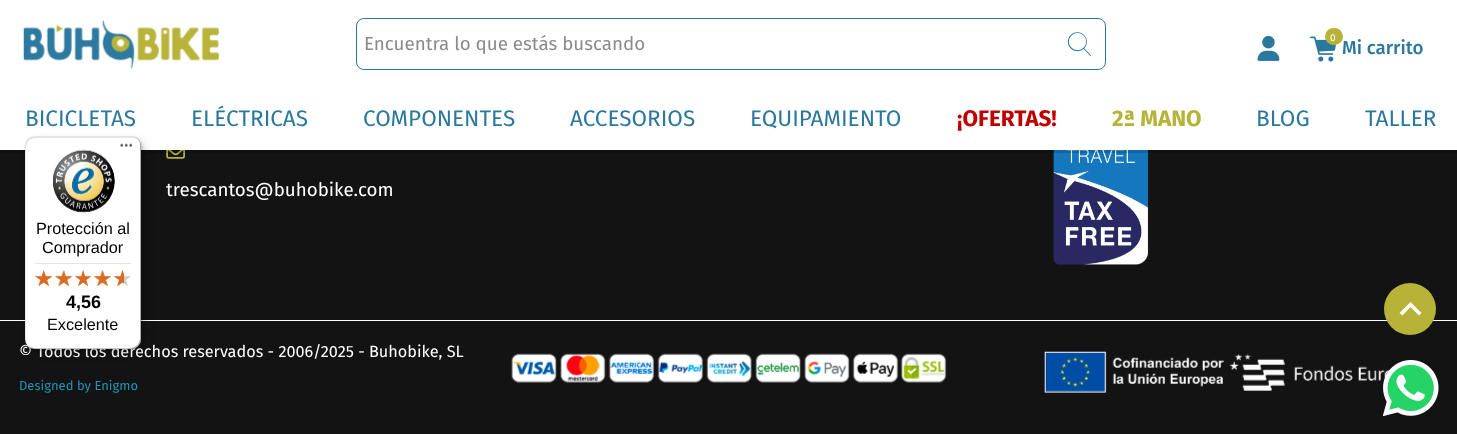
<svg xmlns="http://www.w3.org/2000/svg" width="1457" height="434">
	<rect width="100%" height="100%" fill="#131313" />
	<image x="166" y="150" width="19" height="9" href="assets/img5.png" />
	<image x="1052" y="150" width="98" height="115" href="assets/img6.png" />
	<rect x="0" y="-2" width="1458" height="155" fill="#000000" fill-opacity="0.15" filter="blur(0.5px)" />
	<rect x="0" y="0" width="1457" height="150" fill="#FFFFFF" />
	<image x="23" y="20" width="196" height="50" href="assets/img1.png" />
	<rect x="356.5" y="18.5" width="749" height="51" rx="7.5" fill="none" stroke="#2B789E" />
	<text x="364" y="50" font-family="Fira Sans" font-size="18.75" fill="#8A8A8A">Encuentra lo que estás buscando</text>
	<image x="1067" y="32" width="24" height="24" href="assets/img2.png" />
	<image x="1257" y="35" width="23" height="26" href="assets/img3.png" />
	<image x="1310" y="36" width="26" height="26" href="assets/img4.png" />
	<rect x="1325" y="28" width="18" height="17" rx="8.5" fill="#B7B339" />
	<text x="1330" y="41" font-family="Fira Sans" font-size="10" fill="#FFFFFF">0</text>
	<text x="1342" y="54" font-family="Fira Sans" font-size="18.75" font-weight="500" fill="#2B789E">Mi carrito</text>
	<g font-family="Fira Sans" font-size="22.5" fill="#2B789E">
		<text x="25" y="126">BICICLETAS</text>
		<text x="191" y="126">ELÉCTRICAS</text>
		<text x="363" y="126">COMPONENTES</text>
		<text x="570" y="126">ACCESORIOS</text>
		<text x="750" y="126">EQUIPAMIENTO</text>
	</g>
	<text x="957" y="126" font-family="Fira Sans" font-size="22.5" font-weight="700" fill="#BF0000">¡OFERTAS!</text>
	<text x="1112" y="126" font-family="Fira Sans" font-size="22.5" font-weight="700" fill="#B7B339">2ª MANO</text>
	<g font-family="Fira Sans" font-size="22.5" fill="#2B789E">
		<text x="1256" y="126">BLOG</text>
		<text x="1365" y="126">TALLER</text>
	</g>
	<text x="166" y="196" font-family="Fira Sans" font-size="18.75" fill="#FFFFFF">trescantos@buhobike.com</text>
	<rect x="0" y="320" width="1457" height="1" fill="#FFFFFF" />
	<text x="19" y="357" font-family="Fira Sans" font-size="16.25" fill="#FFFFFF">© Todos los derechos reservados - 2006/2025 - Buhobike, SL</text>
	<text x="19" y="390" font-family="Fira Sans" font-size="13" fill="#2193B3">Designed by Enigmo</text>
	<image x="511" y="353" width="436" height="31" href="assets/img7.png" />
	<image x="1044" y="351" width="389" height="42" href="assets/img8.png" />
	<circle cx="1410" cy="309" r="26" fill="#B7B339" />
	<path d="M1402.5 315.5L1399.5 313L1410.5 302L1421.5 313L1419 315.5L1410.5 307Z" fill="#FFFFFF" />
	<rect x="29" y="140" width="116" height="213" rx="10" fill="#000000" fill-opacity="0.15" filter="blur(5px)" />
	<rect x="26" y="138" width="117" height="212" rx="10" fill="#000000" fill-opacity="0.15" filter="blur(1px)" />
	<rect x="25" y="136" width="116" height="213" rx="10" fill="#FFFFFF" />
	<path d="M36 138H132C135 138 138 139 140 142C138 138 135 136 131 136H35C29 136 25 140 25 146V339C25 342 26 345 28 347C27 345 26 343 26 340V148C26 142 31 138 36 138Z" fill="#000000" fill-opacity="0.1" />
	<path d="M27 346C29 348 32 349 35 349H131C137 349 141 345 141 339V146C141 144 140 141 139 140C140 141 140 143 140 145V338C140 343 136 348 130 348H34C31 348 29 347 27 346Z" fill="#000000" fill-opacity="0.2" />
	<path d="M27 345C29 348 32 349 35 349H131C137 349 141 345 141 339V146C141 140 137 136 131 136H130C136 136 140 140 140 146V338C140 344 136 348 130 348H34C32 348 29 347 27 345Z" fill="#323232" fill-opacity="0.2" />
	<image x="120" y="143" width="13" height="4" href="assets/img9.png" />
	<path d="M27 345C29 348 32 349 35 349H131C137 349 141 345 141 339V338C141 344 136 348 131 348H34C32 348 29 347 27 345ZM139 140C137 137 134 136 131 136C134 136 137 137 139 140Z" fill="#FFFFFF" fill-opacity="0.3" fill-rule="evenodd" />
	<image x="53" y="149" width="62" height="64" href="assets/img10.png" />
	<g font-family="Liberation Sans" font-size="16.25" fill="#000000">
		<text x="36" y="234">Protección al</text>
		<text x="42" y="253">Comprador</text>
	</g>
	<rect x="35" y="263" width="96" height="1" fill="#E5E5E5" />
	<image x="35" y="270" width="17" height="16" href="assets/img11.png" />
	<image x="55" y="270" width="17" height="16" href="assets/img12.png" />
	<image x="75" y="270" width="16" height="16" href="assets/img13.png" />
	<image x="93" y="270" width="18" height="16" href="assets/img14.png" />
	<image x="114" y="270" width="17" height="16" href="assets/img15.png" />
	<image x="35" y="270" width="17" height="16" href="assets/img16.png" />
	<image x="54" y="270" width="19" height="16" href="assets/img17.png" />
	<image x="75" y="270" width="16" height="16" href="assets/img18.png" />
	<image x="93" y="270" width="18" height="16" href="assets/img19.png" />
	<image x="114" y="270" width="10" height="16" href="assets/img20.png" />
	<text x="66" y="308" font-family="Liberation Sans" font-size="18" font-weight="700" fill="#000000">4,56</text>
	<text x="47" y="330" font-family="Liberation Sans" font-size="16.25" fill="#000000">Excelente</text>
	<image x="1383" y="360" width="56" height="56" href="assets/img21.png" />
</svg>
